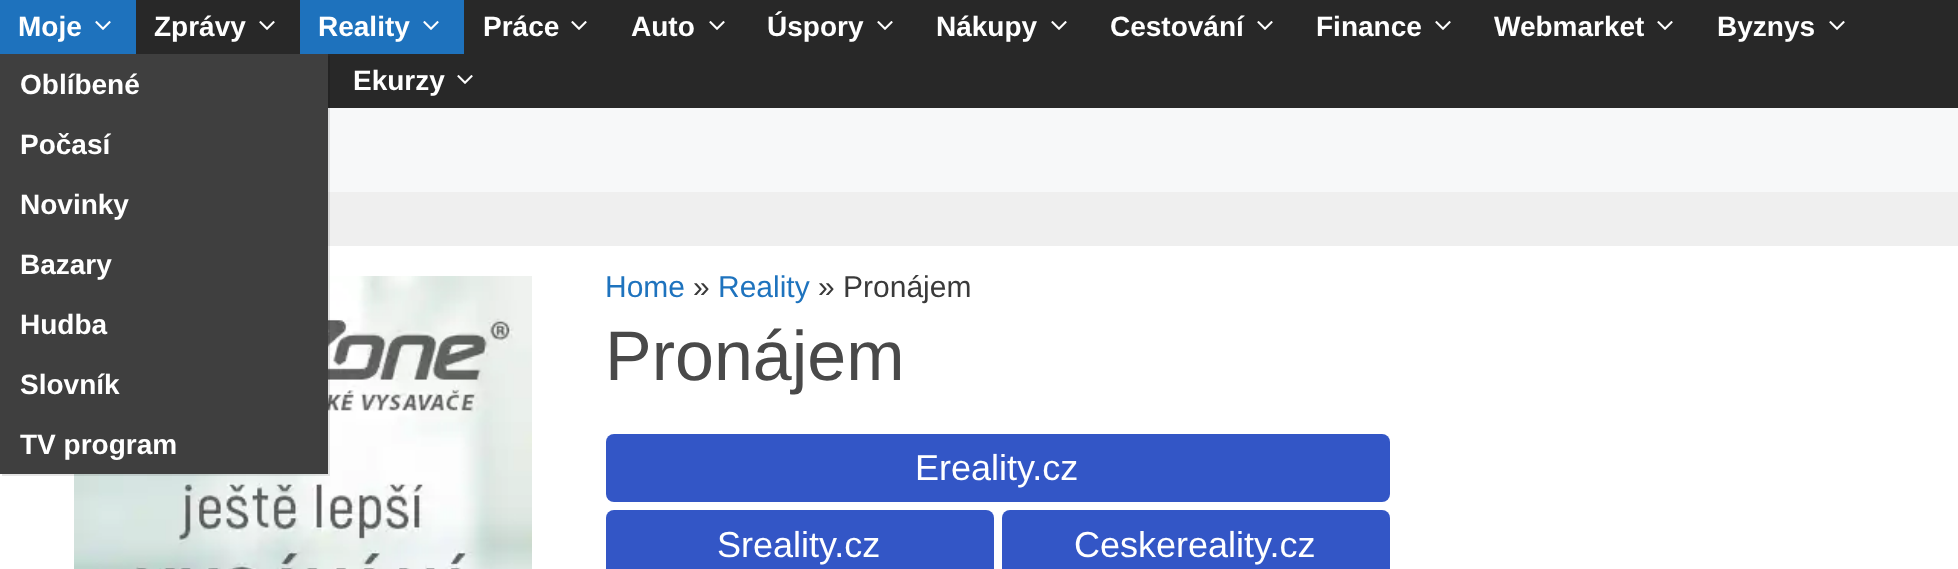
<svg xmlns="http://www.w3.org/2000/svg" width="1958" height="569">
	<rect width="100%" height="100%" fill="#EFEFEF" />
	<rect x="136" y="0" width="1822" height="108" fill="#282828" />
	<rect x="0" y="0" width="136" height="54" fill="#1E72BD" />
	<text x="18" y="36" font-family="Liberation Sans" font-size="28" font-weight="700" fill="#FFFFFF">Moje</text>
	<image x="95" y="21" width="16" height="9" href="assets/img1.png" />
	<rect x="328" y="108" width="1630" height="84" fill="#F7F8F9" />
	<rect x="0" y="246" width="1958" height="323" fill="#FFFFFF" />
	<image x="74" y="276" width="458" height="293" href="assets/img3.png" />
	<path d="M2 474V476H330V56H328V474Z" fill="#000000" fill-opacity="0.1" />
	<rect x="0" y="54" width="328" height="420" fill="#3F3F3F" />
	<g font-family="Liberation Sans" font-size="28" font-weight="700" fill="#FFFFFF">
		<text x="20" y="94">Oblíbené</text>
		<text x="20" y="154">Počasí</text>
		<text x="20" y="214">Novinky</text>
		<text x="20" y="274">Bazary</text>
		<text x="20" y="334">Hudba</text>
		<text x="20" y="394">Slovník</text>
		<text x="20" y="454">TV program</text>
		<text x="154" y="36">Zprávy</text>
	</g>
	<image x="259" y="21" width="16" height="9" href="assets/img2.png" />
	<rect x="300" y="0" width="164" height="54" fill="#1E72BD" />
	<text x="318" y="36" font-family="Liberation Sans" font-size="28" font-weight="700" fill="#FFFFFF">Reality</text>
	<image x="423" y="21" width="16" height="9" href="assets/img1.png" />
	<text x="483" y="36" font-family="Liberation Sans" font-size="28" font-weight="700" fill="#FFFFFF">Práce</text>
	<image x="571" y="21" width="16" height="9" href="assets/img2.png" />
	<text x="631" y="36" font-family="Liberation Sans" font-size="28" font-weight="700" fill="#FFFFFF">Auto</text>
	<image x="709" y="21" width="16" height="9" href="assets/img2.png" />
	<text x="767" y="36" font-family="Liberation Sans" font-size="28" font-weight="700" fill="#FFFFFF">Úspory</text>
	<image x="877" y="21" width="16" height="9" href="assets/img2.png" />
	<text x="936" y="36" font-family="Liberation Sans" font-size="28" font-weight="700" fill="#FFFFFF">Nákupy</text>
	<image x="1051" y="21" width="16" height="9" href="assets/img2.png" />
	<text x="1110" y="36" font-family="Liberation Sans" font-size="28" font-weight="700" fill="#FFFFFF">Cestování</text>
	<image x="1257" y="21" width="16" height="9" href="assets/img2.png" />
	<text x="1316" y="36" font-family="Liberation Sans" font-size="28" font-weight="700" fill="#FFFFFF">Finance</text>
	<image x="1435" y="21" width="16" height="9" href="assets/img2.png" />
	<text x="1494" y="36" font-family="Liberation Sans" font-size="28" font-weight="700" fill="#FFFFFF">Webmarket</text>
	<image x="1657" y="21" width="16" height="9" href="assets/img2.png" />
	<text x="1717" y="36" font-family="Liberation Sans" font-size="28" font-weight="700" fill="#FFFFFF">Byznys</text>
	<image x="1829" y="21" width="16" height="9" href="assets/img2.png" />
	<text x="353" y="90" font-family="Liberation Sans" font-size="28" font-weight="700" fill="#FFFFFF">Ekurzy</text>
	<image x="457" y="75" width="16" height="9" href="assets/img2.png" />
	<text x="605" y="297" font-family="Liberation Sans" font-size="30" fill="#1E73BE">Home</text>
	<text x="693" y="297" font-family="Liberation Sans" font-size="30" fill="#3A3A3A">»</text>
	<text x="718" y="297" font-family="Liberation Sans" font-size="30" fill="#1E73BE">Reality</text>
	<text x="818" y="297" font-family="Liberation Sans" font-size="30" fill="#3A3A3A">» Pronájem</text>
	<text x="605" y="380" font-family="Liberation Sans" font-size="70" fill="#494949">Pronájem</text>
	<rect x="606" y="434" width="784" height="68" rx="8" fill="#3356C6" />
	<text x="915" y="480" font-family="Liberation Sans" font-size="36" fill="#FFFFFF">Ereality.cz</text>
	<rect x="606" y="510" width="388" height="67" rx="8" fill="#3356C6" />
	<text x="717" y="557" font-family="Liberation Sans" font-size="36" fill="#FFFFFF">Sreality.cz</text>
	<rect x="1002" y="510" width="388" height="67" rx="8" fill="#3356C6" />
	<text x="1074" y="557" font-family="Liberation Sans" font-size="36" fill="#FFFFFF">Ceskereality.cz</text>
</svg>
